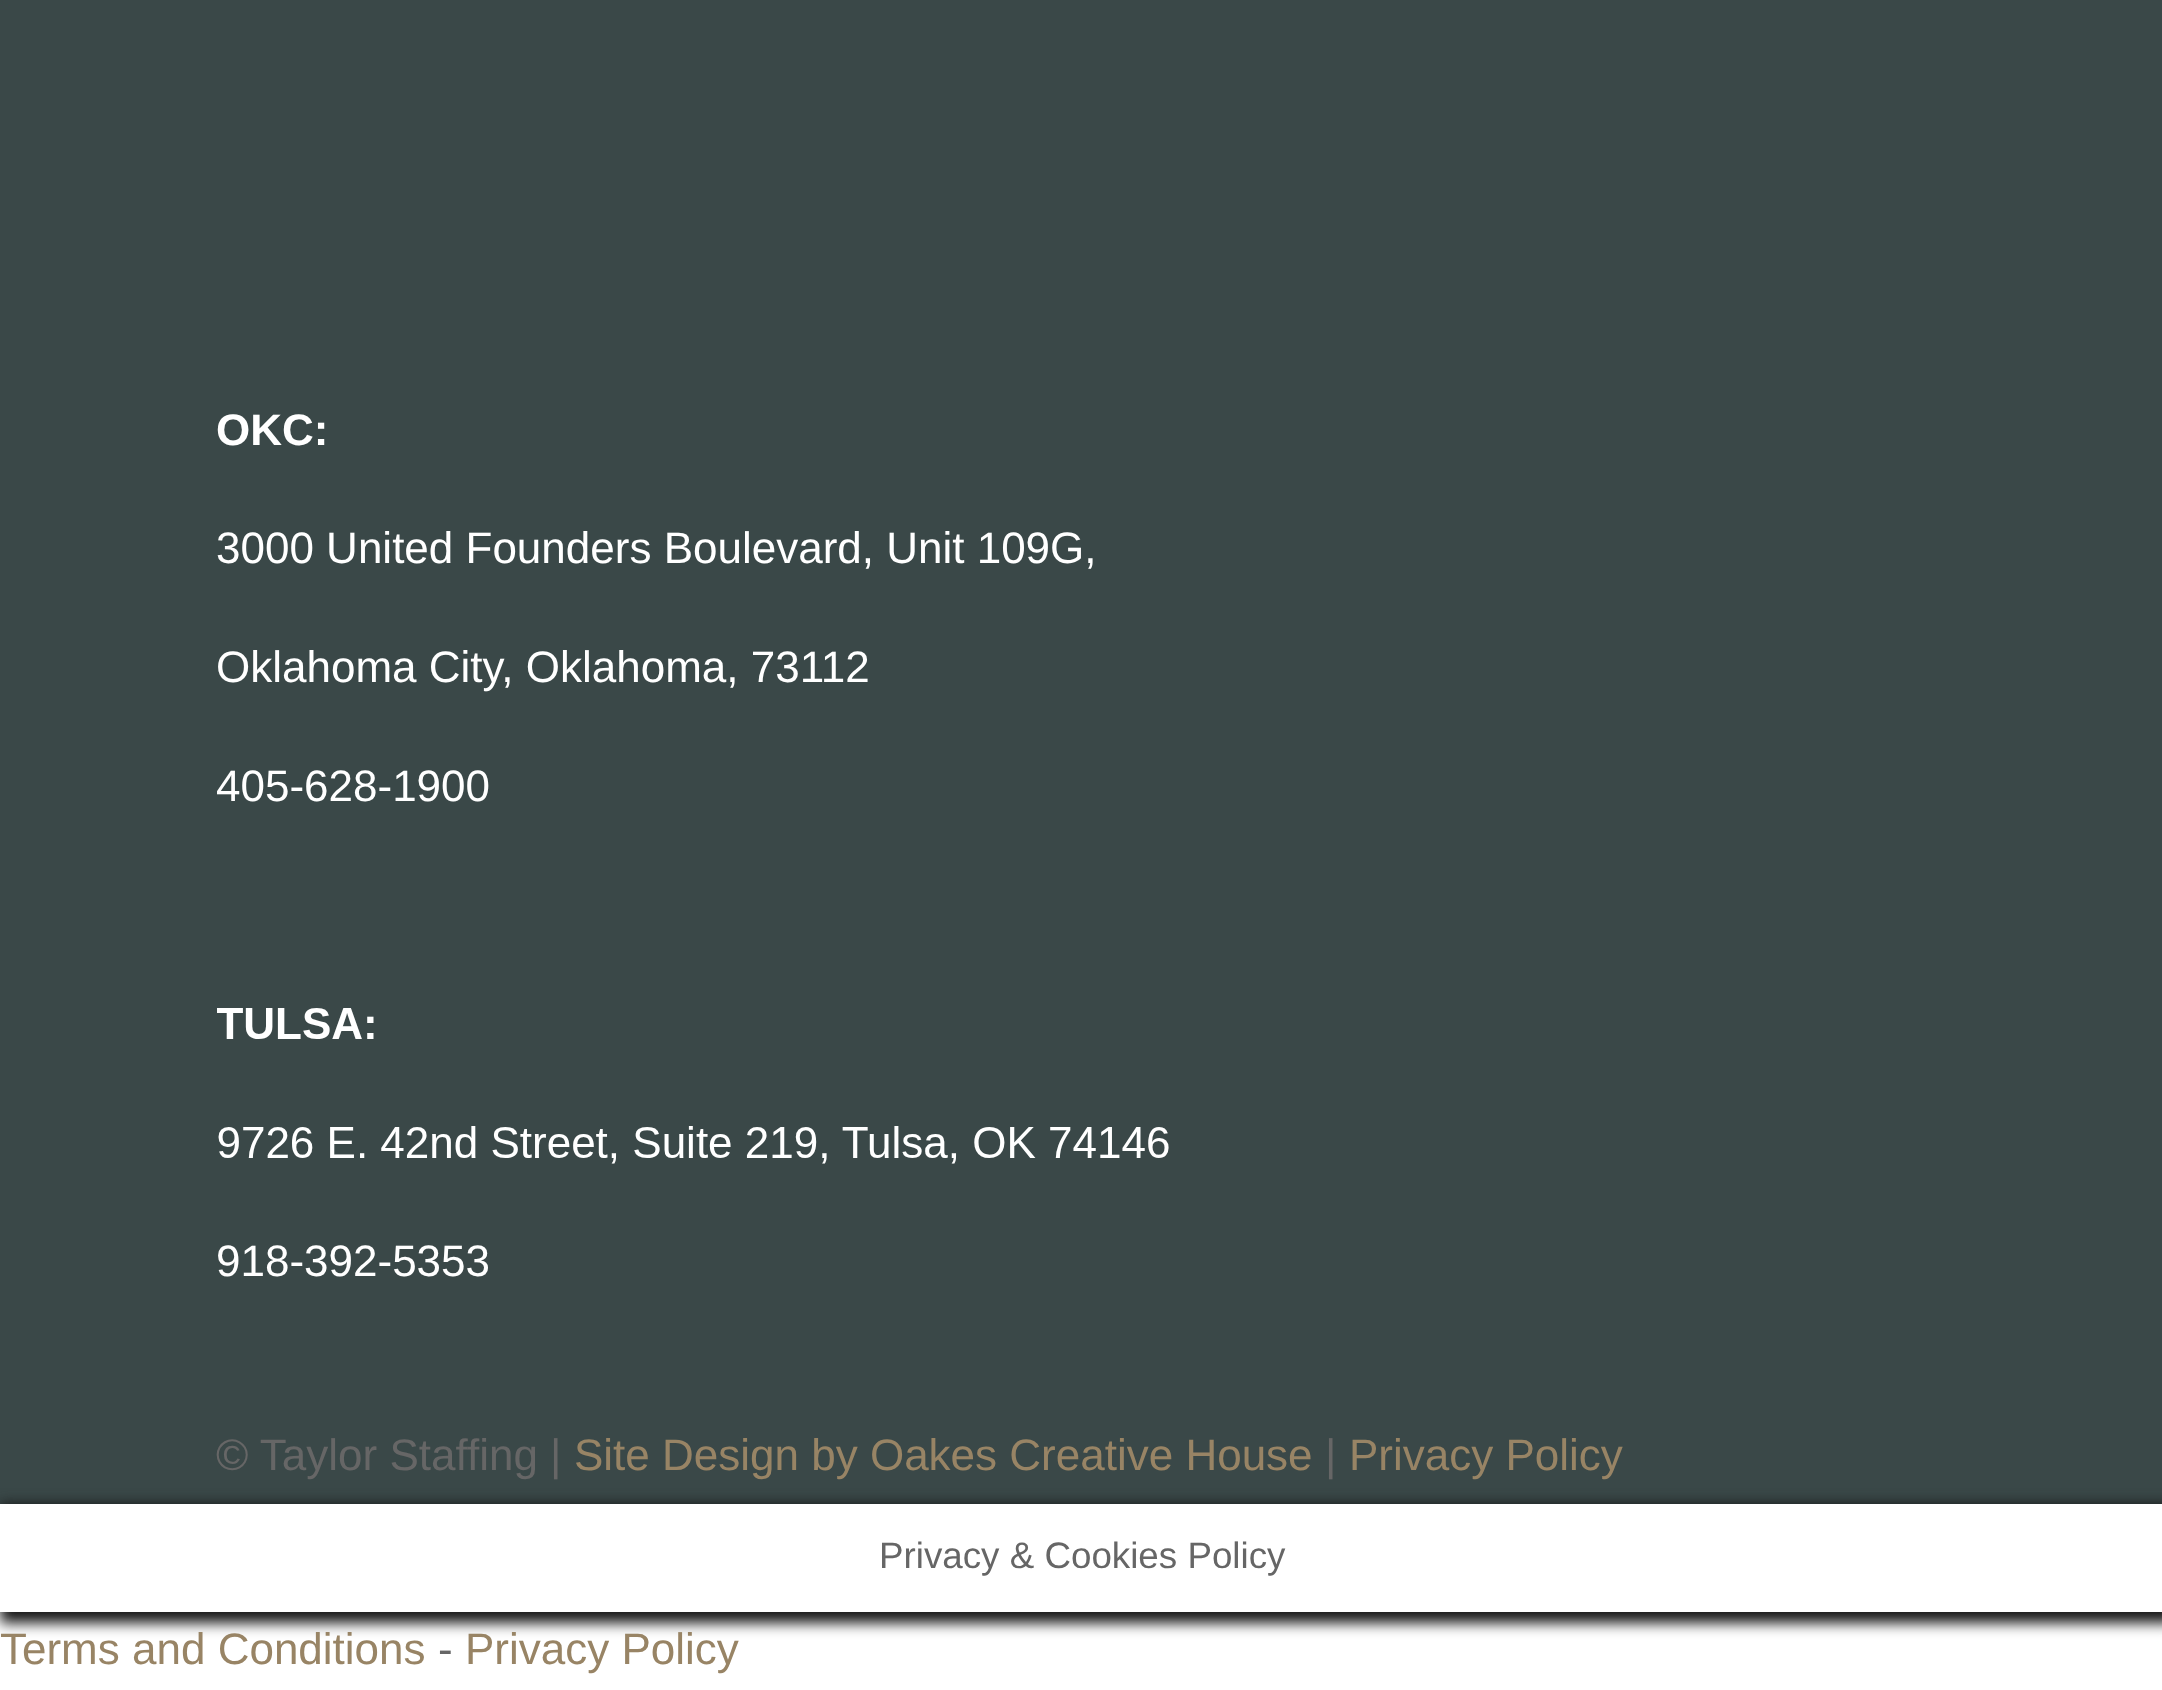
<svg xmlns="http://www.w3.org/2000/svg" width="2162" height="1690">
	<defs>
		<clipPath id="clip1"><path d="M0 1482H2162V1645H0ZM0 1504H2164V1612H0Z" clip-rule="evenodd" /></clipPath>
	</defs>
	<rect width="100%" height="100%" fill="#FFFFFF" />
	<rect x="0" y="0" width="2162" height="1504" fill="#3A4848" />
	<text x="216" y="445" font-family="Liberation Sans" font-size="44" font-weight="700" fill="#FFFFFF">OKC:</text>
	<g font-family="Liberation Sans" font-size="44" fill="#FFFFFF">
		<text x="216" y="563">3000 United Founders Boulevard, Unit 109G,</text>
		<text x="216" y="682">Oklahoma City, Oklahoma, 73112</text>
		<text x="216" y="801">405-628-1900</text>
	</g>
	<image x="217" y="1008" width="157" height="31" href="assets/img1.png" />
	<image x="218" y="1126" width="951" height="38" href="assets/img2.png" />
	<text x="216" y="1276" font-family="Liberation Sans" font-size="44" fill="#FFFFFF">918-392-5353</text>
	<text x="216" y="1470" font-family="Liberation Sans" font-size="44" fill="#666666">© Taylor Staffing |</text>
	<text x="574" y="1470" font-family="Liberation Sans" font-size="44" fill="#988465">Site Design by Oakes Creative House</text>
	<text x="1325" y="1470" font-family="Liberation Sans" font-size="44" fill="#666666">|</text>
	<text x="1349" y="1470" font-family="Liberation Sans" font-size="44" fill="#988465">Privacy Policy</text>
	<g clip-path="url(#clip1)">
		<rect x="0" y="1504" width="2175" height="119" fill="#161616" filter="blur(7px)" />
	</g>
	<text x="879" y="1568" font-family="Liberation Sans" font-size="36.75" fill="#666666">Privacy &amp; Cookies Policy</text>
	<text x="0" y="1664" font-family="Liberation Sans" font-size="44" fill="#988465">Terms and Conditions</text>
	<text x="438" y="1664" font-family="Liberation Sans" font-size="44" fill="#666666">-</text>
	<text x="465" y="1664" font-family="Liberation Sans" font-size="44" fill="#988465">Privacy Policy</text>
</svg>
